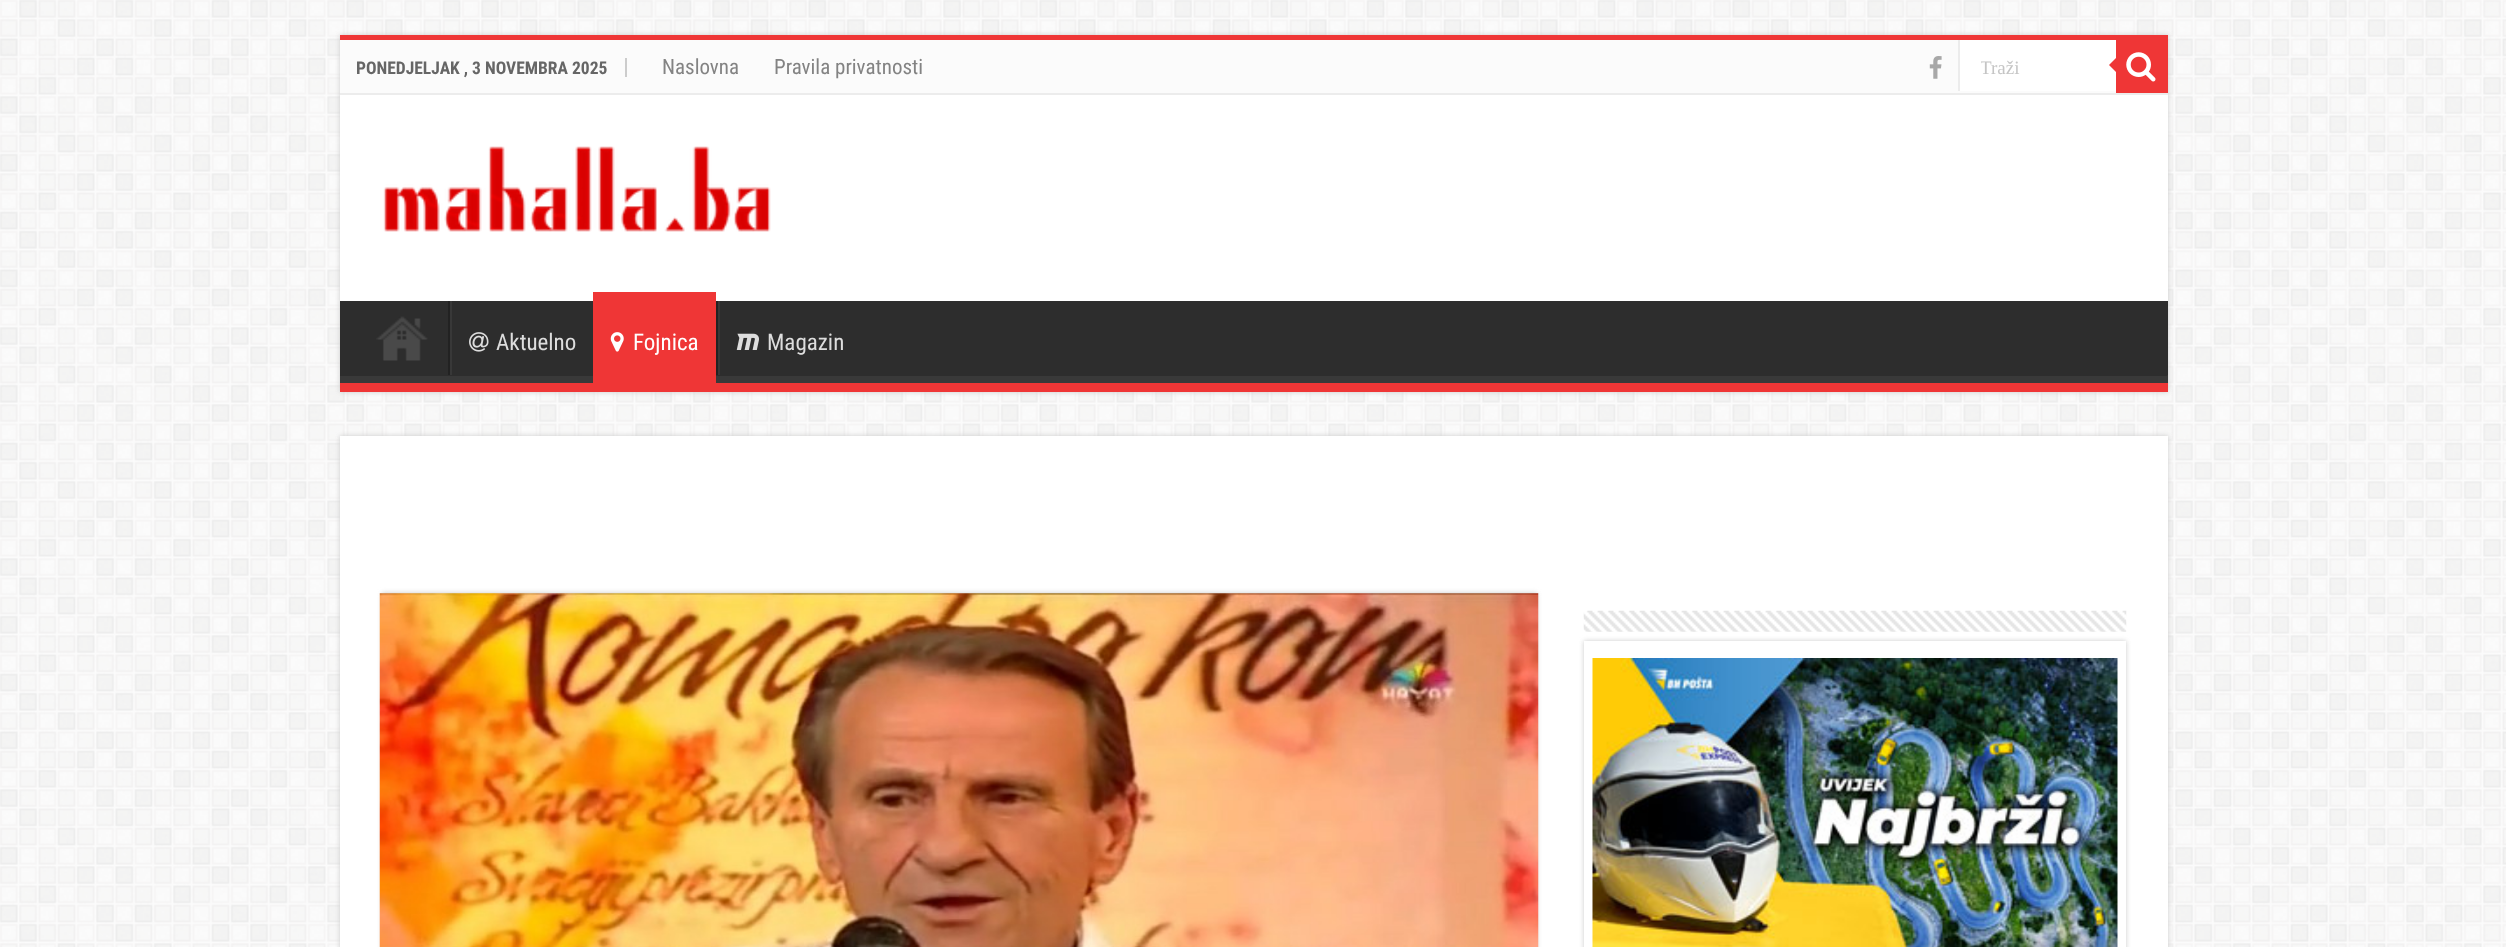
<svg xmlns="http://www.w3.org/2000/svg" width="2506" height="947">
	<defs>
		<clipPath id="clip1"><rect x="1981" y="56" width="114" height="21" /></clipPath>
		<clipPath id="clip2"><rect x="340" y="301" width="1828" height="82" /></clipPath>
		<clipPath id="clip3"><path d="M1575 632H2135V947H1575ZM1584 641H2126V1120H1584Z" clip-rule="evenodd" /></clipPath>
	</defs>
	<rect width="100%" height="100%" fill="#FFFFFF" />
	<image x="0" y="0" width="2506" height="947" href="assets/img1.png" />
	<rect x="340" y="35" width="1828" height="357" fill="#CACACA" filter="blur(2.5px)" />
	<rect x="340" y="95" width="1828" height="206" fill="#FFFFFF" />
	<rect x="340" y="35" width="1828" height="5" fill="#EF3636" />
	<rect x="340" y="40" width="1776" height="53" fill="#FBFBFB" />
	<rect x="340" y="93" width="1828" height="2" fill="#ECECEC" />
	<rect x="625" y="58" width="2" height="19" fill="#CCCCCC" />
	<text x="356" y="74" font-family="Roboto Condensed" font-size="17.5" font-weight="700" fill="#666666">PONEDJELJAK , 3 NOVEMBRA 2025</text>
	<g font-family="Roboto Condensed" font-size="21" fill="#838383">
		<text x="662" y="74">Naslovna</text>
		<text x="774" y="74">Pravila privatnosti</text>
	</g>
	<image x="1929" y="56" width="13" height="23" href="assets/img2.png" />
	<rect x="1960" y="40" width="156" height="51" fill="#FFFFFF" />
	<rect x="1958" y="40" width="2" height="51" fill="#ECECEC" />
	<g clip-path="url(#clip1)">
		<text x="1980" y="74" font-family="Liberation Serif" font-size="19" fill="#C5C5C5">Traži</text>
	</g>
	<rect x="2116" y="40" width="52" height="53" fill="#EF3636" />
	<image x="2126" y="52" width="30" height="30" href="assets/img3.png" />
	<path d="M2116 58V72L2109 65Z" fill="#EF3636" />
	<image x="383" y="146" width="388" height="86" href="assets/img4.png" />
	<rect x="340" y="301" width="1828" height="75" fill="#2D2D2D" />
	<g clip-path="url(#clip2)">
		<path d="M166 128H2342V556H166ZM338 290H2166C2167 290 2168 291 2168 292V374C2168 375 2167 376 2166 376H338C337 376 336 375 336 374V292C336 291 337 290 338 290Z" fill="#393939" fill-rule="evenodd" />
	</g>
	<rect x="340" y="383" width="1828" height="9" fill="#EF3636" />
	<image x="376" y="316" width="52" height="45" href="assets/img5.png" />
	<rect x="448" y="301" width="2" height="74" fill="#222222" />
	<rect x="450" y="301" width="2" height="74" fill="#383838" />
	<image x="469" y="332" width="20" height="20" href="assets/img6.png" />
	<text x="496" y="350" font-family="Roboto Condensed" font-size="23" fill="#DDDDDD">Aktuelno</text>
	<rect x="593" y="292" width="123" height="91" fill="#EF3636" />
	<image x="610" y="332" width="14" height="20" href="assets/img7.png" />
	<text x="633" y="350" font-family="Roboto Condensed" font-size="23" fill="#FFFFFF">Fojnica</text>
	<rect x="716" y="301" width="2" height="74" fill="#222222" />
	<rect x="718" y="301" width="2" height="74" fill="#383838" />
	<image x="736" y="333" width="23" height="17" href="assets/img8.png" />
	<text x="767" y="350" font-family="Roboto Condensed" font-size="23" fill="#DDDDDD">Magazin</text>
	<rect x="340" y="436" width="1828" height="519" fill="#CACACA" filter="blur(2.5px)" />
	<rect x="340" y="436" width="1828" height="511" fill="#FFFFFF" />
	<rect x="382" y="593" width="1155" height="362" fill="#CACACA" filter="blur(2.5px)" />
	<image x="379" y="593" width="1160" height="354" href="assets/img9.png" />
	<image x="1583" y="610" width="544" height="22" href="assets/img10.png" />
	<g clip-path="url(#clip3)">
		<rect x="1584" y="641" width="542" height="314" fill="#CACACA" filter="blur(2.5px)" />
	</g>
	<image x="1592" y="658" width="526" height="289" href="assets/img11.png" />
</svg>
